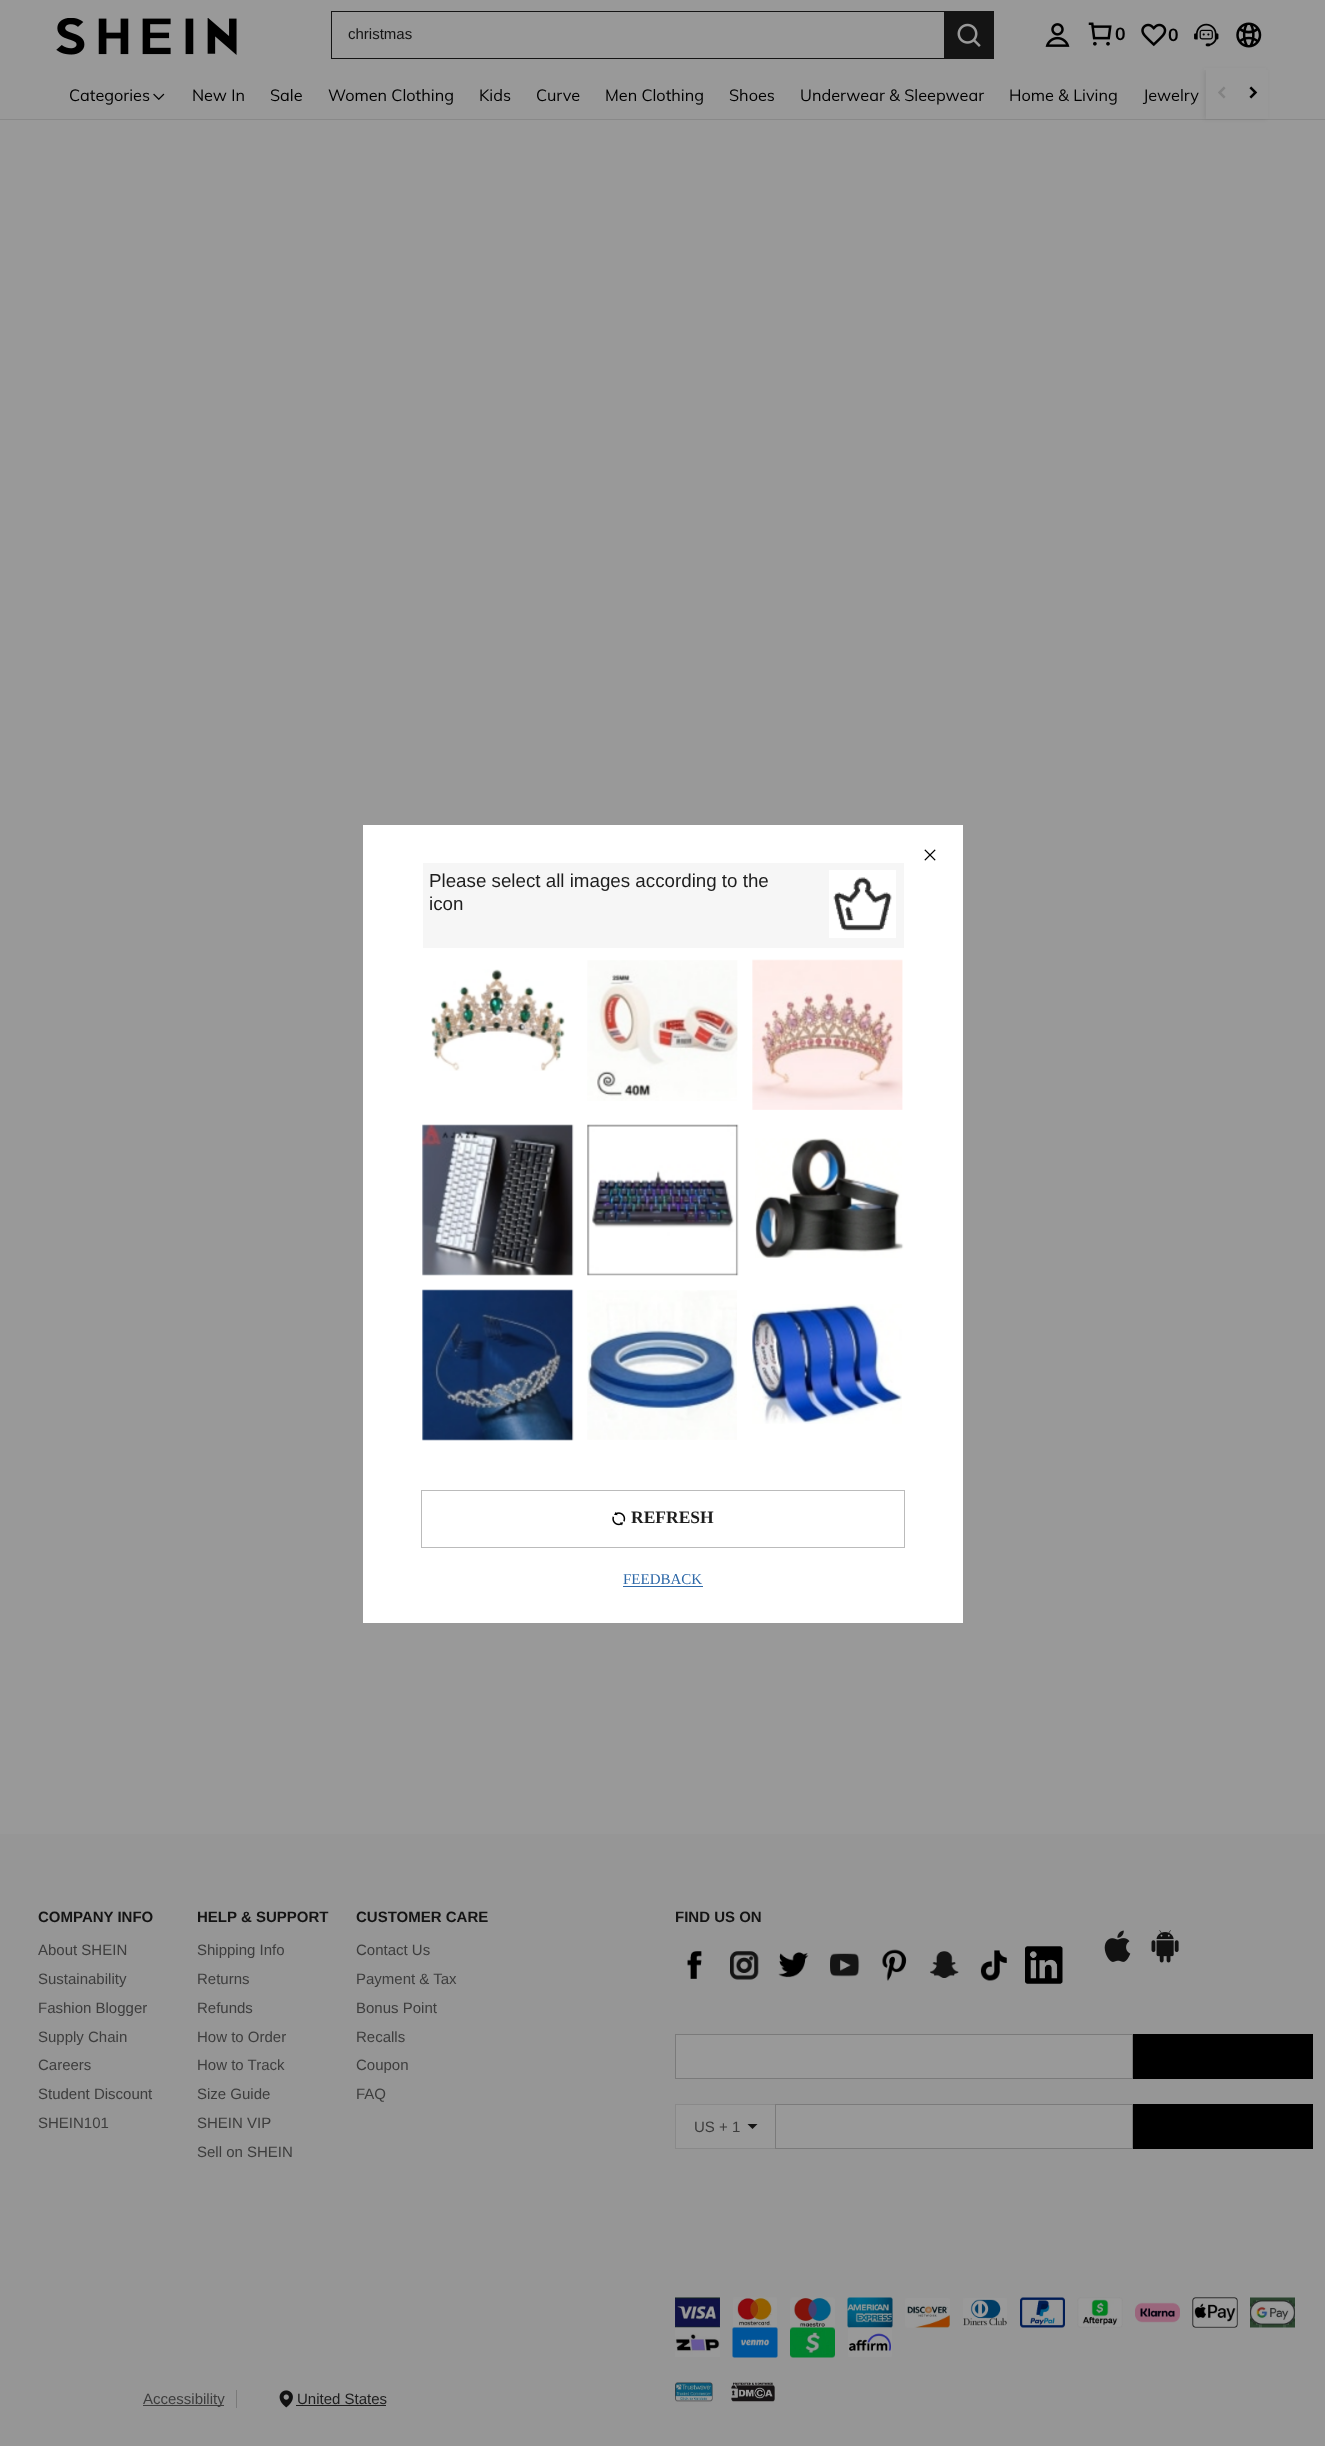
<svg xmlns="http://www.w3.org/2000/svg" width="1325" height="2446">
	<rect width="100%" height="100%" fill="#999999" />
	<rect x="0" y="119" width="1325" height="1" fill="#898989" />
	<rect x="1204" y="70" width="62" height="49" fill="#000000" fill-opacity="0.08" filter="blur(2px)" />
	<rect x="1204" y="68" width="62" height="2" fill="#999999" />
	<image x="56" y="18" width="181" height="37" href="assets/img1.png" />
	<rect x="331" y="11" width="613" height="1" fill="#141414" />
	<rect x="331" y="58" width="613" height="1" fill="#141414" />
	<rect x="331" y="11" width="1" height="48" fill="#141414" />
	<text x="348" y="39" font-family="Liberation Sans" font-size="15" fill="#141414">christmas</text>
	<rect x="944" y="11" width="50" height="48" fill="#141414" />
	<image x="957" y="23" width="24" height="24" href="assets/img2.png" />
	<image x="1045" y="23" width="25" height="24" href="assets/img3.png" />
	<image x="1088" y="22" width="24" height="24" href="assets/img4.png" />
	<text x="1115" y="40" font-family="Muli" font-size="17.5" font-weight="700" fill="#000000">0</text>
	<image x="1141" y="23" width="26" height="24" href="assets/img5.png" />
	<text x="1168" y="41" font-family="Muli" font-size="17.5" font-weight="700" fill="#000000">0</text>
	<image x="1194" y="23" width="25" height="24" href="assets/img6.png" />
	<image x="1236" y="22" width="26" height="26" href="assets/img7.png" />
	<text x="69" y="101" font-family="Muli" font-size="16.25" fill="#000000">Categories</text>
	<image x="153" y="93" width="12" height="7" href="assets/img8.png" />
	<g font-family="Muli" font-size="16.25" fill="#000000">
		<text x="192" y="101">New In</text>
		<text x="270" y="101">Sale</text>
		<text x="328" y="101">Women Clothing</text>
		<text x="479" y="101">Kids</text>
		<text x="536" y="101">Curve</text>
		<text x="605" y="101">Men Clothing</text>
		<text x="729" y="101">Shoes</text>
		<text x="800" y="101">Underwear &amp; Sleepwear</text>
		<text x="1009" y="101">Home &amp; Living</text>
		<text x="1143" y="101">Jewelry</text>
	</g>
	<rect x="1206" y="70" width="62" height="49" fill="#999999" />
	<image x="1218" y="86" width="8" height="13" href="assets/img9.png" />
	<image x="1249" y="86" width="9" height="13" href="assets/img10.png" />
	<rect x="0" y="1834" width="1325" height="612" fill="#969696" />
	<text x="38" y="1922" font-family="Liberation Sans" font-size="15" font-weight="700" fill="#141414">COMPANY INFO</text>
	<g font-family="Liberation Sans" font-size="15" fill="#3D3D3D">
		<text x="38" y="1955">About SHEIN</text>
		<text x="38" y="1984">Sustainability</text>
		<text x="38" y="2013">Fashion Blogger</text>
		<text x="38" y="2042">Supply Chain</text>
		<text x="38" y="2070">Careers</text>
		<text x="38" y="2099">Student Discount</text>
		<text x="38" y="2128">SHEIN101</text>
	</g>
	<text x="197" y="1922" font-family="Liberation Sans" font-size="15" font-weight="700" fill="#141414">HELP &amp; SUPPORT</text>
	<g font-family="Liberation Sans" font-size="15" fill="#3D3D3D">
		<text x="197" y="1955">Shipping Info</text>
		<text x="197" y="1984">Returns</text>
		<text x="197" y="2013">Refunds</text>
		<text x="197" y="2042">How to Order</text>
		<text x="197" y="2070">How to Track</text>
		<text x="197" y="2099">Size Guide</text>
		<text x="197" y="2128">SHEIN VIP</text>
		<text x="197" y="2157">Sell on SHEIN</text>
	</g>
	<text x="356" y="1922" font-family="Liberation Sans" font-size="15" font-weight="700" fill="#141414">CUSTOMER CARE</text>
	<g font-family="Liberation Sans" font-size="15" fill="#3D3D3D">
		<text x="356" y="1955">Contact Us</text>
		<text x="356" y="1984">Payment &amp; Tax</text>
		<text x="356" y="2013">Bonus Point</text>
		<text x="356" y="2042">Recalls</text>
		<text x="356" y="2070">Coupon</text>
		<text x="356" y="2099">FAQ</text>
	</g>
	<text x="675" y="1922" font-family="Liberation Sans" font-size="15" font-weight="700" fill="#141414">FIND US ON</text>
	<image x="687" y="1951" width="15" height="28" href="assets/img11.png" />
	<image x="730" y="1951" width="29" height="29" href="assets/img12.png" />
	<image x="778" y="1952" width="31" height="26" href="assets/img13.png" />
	<image x="830" y="1953" width="30" height="24" href="assets/img14.png" />
	<image x="882" y="1949" width="25" height="32" href="assets/img15.png" />
	<image x="930" y="1951" width="29" height="27" href="assets/img16.png" />
	<image x="980" y="1950" width="27" height="31" href="assets/img17.png" />
	<image x="1025" y="1946" width="38" height="38" href="assets/img18.png" />
	<image x="1104" y="1930" width="27" height="32" href="assets/img19.png" />
	<image x="1151" y="1930" width="28" height="33" href="assets/img20.png" />
	<rect x="675.5" y="2034.5" width="457" height="44" fill="#999999" stroke="#7A7A7A" />
	<rect x="1133" y="2034" width="180" height="45" fill="#000000" />
	<rect x="676" y="2105" width="99" height="43" fill="#999999" />
	<rect x="675" y="2104" width="100" height="1" fill="#898989" />
	<rect x="675" y="2148" width="100" height="1" fill="#898989" />
	<rect x="675" y="2104" width="1" height="45" fill="#898989" />
	<text x="694" y="2132" font-family="Liberation Sans" font-size="15" fill="#3D3D3D">US + 1</text>
	<path d="M747.5 2124H757.5L752.5 2129Z" fill="#141414" />
	<rect x="775.5" y="2104.5" width="357" height="44" fill="#999999" stroke="#7A7A7A" />
	<rect x="1133" y="2104" width="180" height="45" fill="#000000" />
	<image x="675" y="2297" width="45" height="31" href="assets/img21.png" />
	<image x="733" y="2297" width="44" height="30" href="assets/img22.png" />
	<image x="790" y="2297" width="45" height="30" href="assets/img23.png" />
	<image x="847" y="2297" width="46" height="31" href="assets/img24.png" />
	<image x="905" y="2298" width="45" height="30" href="assets/img25.png" />
	<image x="963" y="2298" width="44" height="29" href="assets/img26.png" />
	<image x="1020" y="2297" width="45" height="31" href="assets/img27.png" />
	<image x="1077" y="2297" width="46" height="31" href="assets/img28.png" />
	<image x="1135" y="2302" width="45" height="21" href="assets/img29.png" />
	<image x="1192" y="2297" width="46" height="31" href="assets/img30.png" />
	<image x="1250" y="2297" width="45" height="31" href="assets/img31.png" />
	<image x="675" y="2327" width="45" height="30" href="assets/img32.png" />
	<image x="732" y="2327" width="46" height="31" href="assets/img33.png" />
	<image x="790" y="2327" width="45" height="31" href="assets/img34.png" />
	<image x="848" y="2327" width="44" height="30" href="assets/img35.png" />
	<rect x="236" y="2390" width="1" height="18" fill="#7A7A7A" />
	<rect x="143" y="2405" width="81" height="1" fill="#3D3D3D" />
	<text x="143" y="2404" font-family="Liberation Sans" font-size="15" fill="#3D3D3D">Accessibility</text>
	<image x="279" y="2390" width="14" height="18" href="assets/img36.png" />
	<text x="297" y="2404" font-family="Liberation Sans" font-size="15" fill="#1E1E1E">United States</text>
	<rect x="296" y="2405" width="90" height="1" fill="#1E1E1E" />
	<image x="675" y="2382" width="38" height="20" href="assets/img37.png" />
	<image x="731" y="2382" width="44" height="20" href="assets/img38.png" />
	<rect x="363" y="825" width="600" height="798" fill="#000000" fill-opacity="0.3" filter="blur(0.5px)" />
	<rect x="363" y="825" width="600" height="798" fill="#FFFFFF" />
	<image x="924" y="849" width="12" height="12" href="assets/img39.png" />
	<rect x="423" y="863" width="481" height="85" fill="#F6F6F6" />
	<g font-family="Liberation Sans" font-size="18.75" fill="#1E1E1E">
		<text x="429" y="887">Please select all images according to the</text>
		<text x="429" y="910">icon</text>
	</g>
	<rect x="829" y="870" width="67" height="68" fill="#FFFFFF" />
	<image x="833" y="877" width="59" height="54" href="assets/img40.png" />
	<image x="431" y="969" width="134" height="102" href="assets/img41.png" />
	<image x="587" y="960" width="151" height="141" href="assets/img42.png" />
	<image x="752" y="959" width="151" height="151" href="assets/img43.png" />
	<image x="422" y="1124" width="152" height="152" href="assets/img44.png" />
	<image x="587" y="1124" width="152" height="152" href="assets/img45.png" />
	<image x="755" y="1138" width="149" height="120" href="assets/img46.png" />
	<image x="422" y="1289" width="152" height="152" href="assets/img47.png" />
	<image x="587" y="1290" width="150" height="150" href="assets/img48.png" />
	<image x="752" y="1304" width="150" height="120" href="assets/img49.png" />
	<rect x="421.5" y="1490.5" width="483" height="57" fill="none" stroke="#BBBBBB" />
	<image x="612" y="1511" width="14" height="15" href="assets/img50.png" />
	<text x="631" y="1523" font-family="Liberation Serif" font-size="17.5" font-weight="700" fill="#1E1E1E">REFRESH</text>
	<text x="623" y="1584" font-family="Liberation Serif" font-size="15" fill="#2D68A8">FEEDBACK</text>
	<rect x="623" y="1586" width="80" height="1" fill="#2D68A8" />
</svg>
